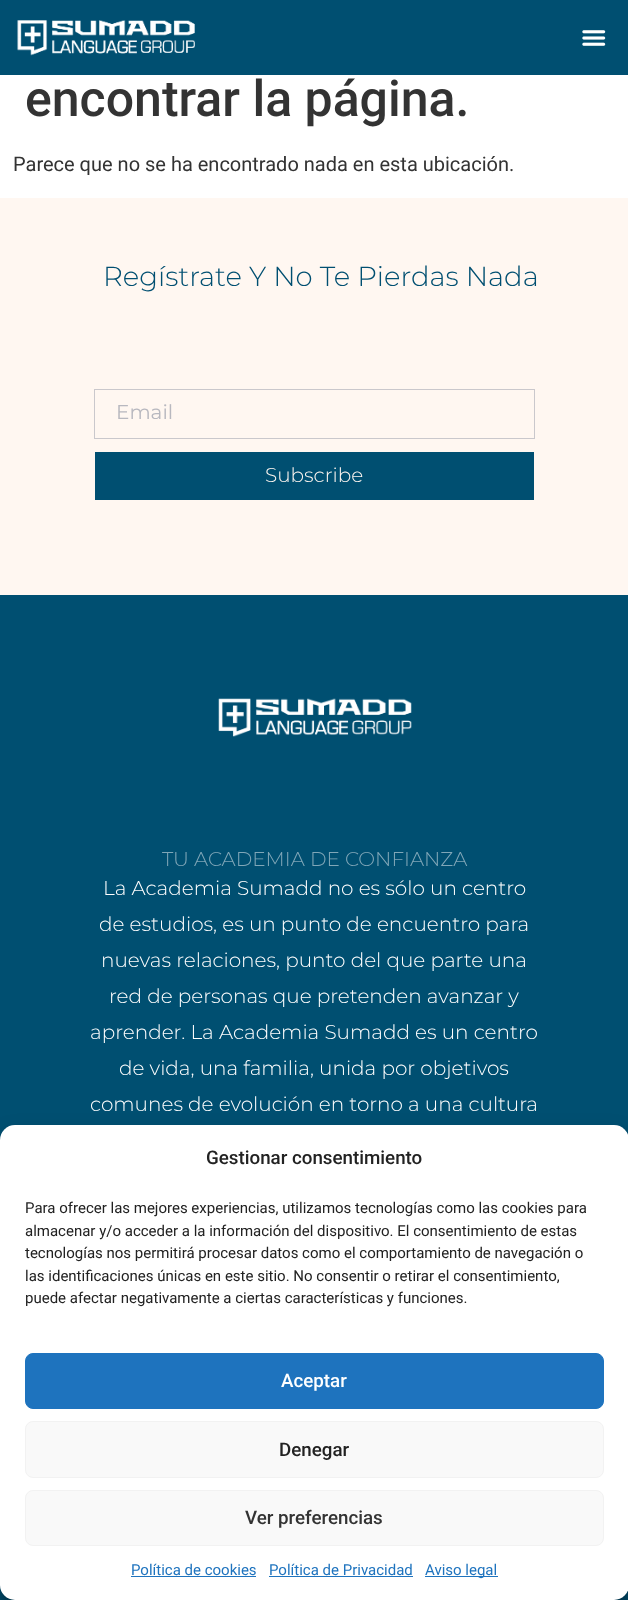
<svg xmlns="http://www.w3.org/2000/svg" width="628" height="1600">
	<rect width="100%" height="100%" fill="#FFFFFF" />
	<rect x="0" y="0" width="628" height="75" fill="#004F71" />
	<image x="17" y="20" width="178" height="36" href="assets/img1.png" />
	<image x="582" y="30" width="24" height="16" href="assets/img2.png" />
	<text x="25" y="116" font-family="Roboto" font-size="50" font-weight="500" fill="#333333">encontrar la página.</text>
	<text x="13" y="171" font-family="Roboto" font-size="20" fill="#333333">Parece que no se ha encontrado nada en esta ubicación.</text>
	<rect x="0" y="198" width="628" height="397" fill="#FFF7F1" />
	<text x="103" y="286" font-family="Montserrat" font-size="27.5" font-weight="300" fill="#004F71">Regístrate Y No Te Pierdas Nada</text>
	<rect x="94.5" y="389.5" width="440" height="49" fill="none" stroke="#CAC8CC" />
	<text x="116" y="419" font-family="Montserrat" font-size="20" fill="#B8B8BF">Email</text>
	<rect x="95" y="452" width="439" height="48" fill="#004F71" />
	<text x="265" y="482" font-family="Montserrat" font-size="20" font-weight="300" fill="#FFF7F1">Subscribe</text>
	<rect x="0" y="595" width="628" height="1005" fill="#004F71" />
	<image x="218" y="698" width="194" height="39" href="assets/img3.png" />
	<text x="162" y="866" font-family="Montserrat" font-size="20" font-weight="300" fill="#80A7B8">TU ACADEMIA DE CONFIANZA</text>
	<g font-family="Montserrat" font-size="20" font-weight="300" fill="#FFFFFF">
		<text x="103" y="895">La Academia Sumadd no es sólo un centro</text>
		<text x="99" y="931">de estudios, es un punto de encuentro para</text>
		<text x="101" y="967">nuevas relaciones, punto del que parte una</text>
		<text x="109" y="1003">red de personas que pretenden avanzar y</text>
		<text x="90" y="1039">aprender. La Academia Sumadd es un centro</text>
		<text x="119" y="1075">de vida, una familia, unida por objetivos</text>
		<text x="90" y="1111">comunes de evolución en torno a una cultura</text>
	</g>
	<rect x="0" y="1133" width="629" height="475" rx="15" fill="#000000" fill-opacity="0.23" filter="blur(4px)" />
	<rect x="0" y="1138" width="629" height="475" rx="15" fill="#000000" fill-opacity="0.19" filter="blur(12.5px)" />
	<rect x="0" y="1125" width="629" height="475" rx="15" fill="#FFFFFF" />
	<text x="206" y="1164" font-family="Roboto" font-size="18.75" font-weight="500" fill="#222222">Gestionar consentimiento</text>
	<g font-family="Roboto" font-size="15" fill="#222222">
		<text x="25" y="1213">Para ofrecer las mejores experiencias, utilizamos tecnologías como las cookies para</text>
		<text x="25" y="1236">almacenar y/o acceder a la información del dispositivo. El consentimiento de estas</text>
		<text x="25" y="1258">tecnologías nos permitirá procesar datos como el comportamiento de navegación o</text>
		<text x="25" y="1281">las identificaciones únicas en este sitio. No consentir o retirar el consentimiento,</text>
		<text x="25" y="1303">puede afectar negativamente a ciertas características y funciones.</text>
	</g>
	<rect x="25.5" y="1353.5" width="578" height="55" rx="7.5" fill="#1E73BE" stroke="#1E73BE" />
	<text x="281" y="1387" font-family="Roboto" font-size="18.75" font-weight="500" fill="#FFFFFF">Aceptar</text>
	<rect x="25.5" y="1421.5" width="578" height="56" rx="7.5" fill="#F9F9F9" stroke="#F2F2F2" />
	<text x="279" y="1456" font-family="Roboto" font-size="18.75" font-weight="500" fill="#222222">Denegar</text>
	<rect x="25.5" y="1490.5" width="578" height="55" rx="7.5" fill="#F9F9F9" stroke="#F2F2F2" />
	<text x="245" y="1524" font-family="Roboto" font-size="18.75" font-weight="500" fill="#333333">Ver preferencias</text>
	<text x="131" y="1575" font-family="Roboto" font-size="15" fill="#1E73BE">Política de cookies</text>
	<rect x="131" y="1576" width="125" height="1" fill="#1E73BE" />
	<text x="269" y="1575" font-family="Roboto" font-size="15" fill="#1E73BE">Política de Privacidad</text>
	<rect x="269" y="1576" width="144" height="1" fill="#1E73BE" />
	<rect x="425" y="1576" width="73" height="1" fill="#1E73BE" />
	<text x="425" y="1575" font-family="Roboto" font-size="15" fill="#1E73BE">Aviso legal</text>
</svg>
